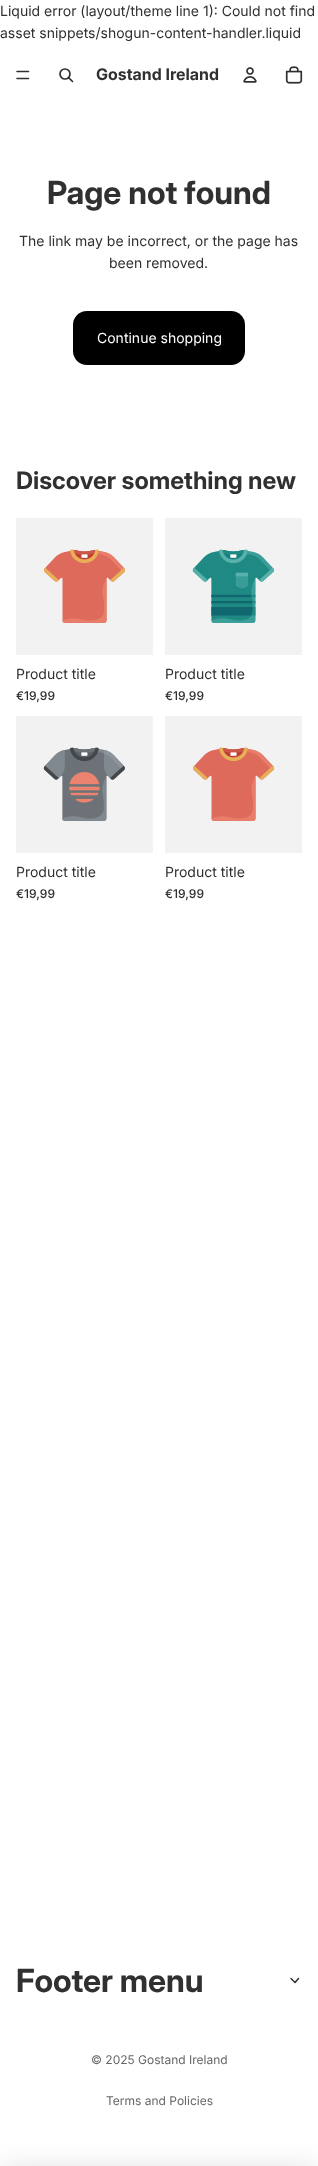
<svg xmlns="http://www.w3.org/2000/svg" width="318" height="2166">
	<rect width="100%" height="100%" fill="#FFFFFF" />
	<g font-family="Inter" font-size="14" fill="#303030">
		<text x="0" y="16">Liquid error (layout/theme line 1): Could not find</text>
		<text x="0" y="38">asset snippets/shogun-content-handler.liquid</text>
	</g>
	<path d="M17 71.5H28.5M17 78.5H28.5" fill="none" stroke="#303030" stroke-width="1.5" stroke-linecap="round" />
	<circle cx="65" cy="74" r="5" fill="none" stroke="#303030" stroke-width="1.7" />
	<path d="M69 78L72.5 81.5" fill="none" stroke="#000000" stroke-opacity="0.81" stroke-width="1.7" stroke-linecap="round" stroke-linejoin="round" />
	<text x="96" y="80" font-family="'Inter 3'" font-size="16" font-weight="700" fill="#303030">Gostand Ireland</text>
	<image x="243" y="67" width="14" height="16" href="assets/img1.png" />
	<image x="285" y="66" width="18" height="18" href="assets/img2.png" />
	<text x="47" y="204" font-family="Inter" font-size="32" font-weight="700" fill="#303030">Page not found</text>
	<g font-family="Inter" font-size="14" fill="#303030">
		<text x="19" y="246">The link may be incorrect, or the page has</text>
		<text x="109" y="268">been removed.</text>
	</g>
	<rect x="73" y="311" width="172" height="54" rx="14" fill="#000000" />
	<text x="97" y="343" font-family="Inter" font-size="14" fill="#FFFFFF">Continue shopping</text>
	<text x="16" y="489" font-family="'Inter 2'" font-size="24" font-weight="700" fill="#303030">Discover something new</text>
	<image x="16" y="518" width="137" height="137" href="assets/img3.png" />
	<text x="16" y="679" font-family="Inter" font-size="14" fill="#303030">Product title</text>
	<text x="16" y="700" font-family="Inter" font-size="12" font-weight="500" fill="#303030">€19,99</text>
	<image x="165" y="518" width="137" height="137" href="assets/img4.png" />
	<text x="165" y="679" font-family="Inter" font-size="14" fill="#303030">Product title</text>
	<text x="165" y="700" font-family="Inter" font-size="12" font-weight="500" fill="#303030">€19,99</text>
	<image x="16" y="716" width="137" height="137" href="assets/img5.png" />
	<text x="16" y="877" font-family="Inter" font-size="14" fill="#303030">Product title</text>
	<text x="16" y="898" font-family="Inter" font-size="12" font-weight="500" fill="#303030">€19,99</text>
	<image x="165" y="716" width="137" height="137" href="assets/img3.png" />
	<text x="165" y="877" font-family="Inter" font-size="14" fill="#303030">Product title</text>
	<text x="165" y="898" font-family="Inter" font-size="12" font-weight="500" fill="#303030">€19,99</text>
	<text x="16" y="1992" font-family="Inter" font-size="32" font-weight="700" fill="#303030">Footer menu</text>
	<path d="M298.5 1978.5L295 1982.5L291 1978.5" fill="none" stroke="#303030" stroke-width="1.5" stroke-linecap="round" stroke-linejoin="round" />
	<g font-family="Inter" font-size="12" fill="#666666">
		<text x="91" y="2064">© 2025 Gostand Ireland</text>
		<text x="106" y="2105">Terms and Policies</text>
	</g>
	<rect x="0" y="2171" width="318" height="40" fill="#000000" fill-opacity="0.15" filter="blur(15px)" />
</svg>
